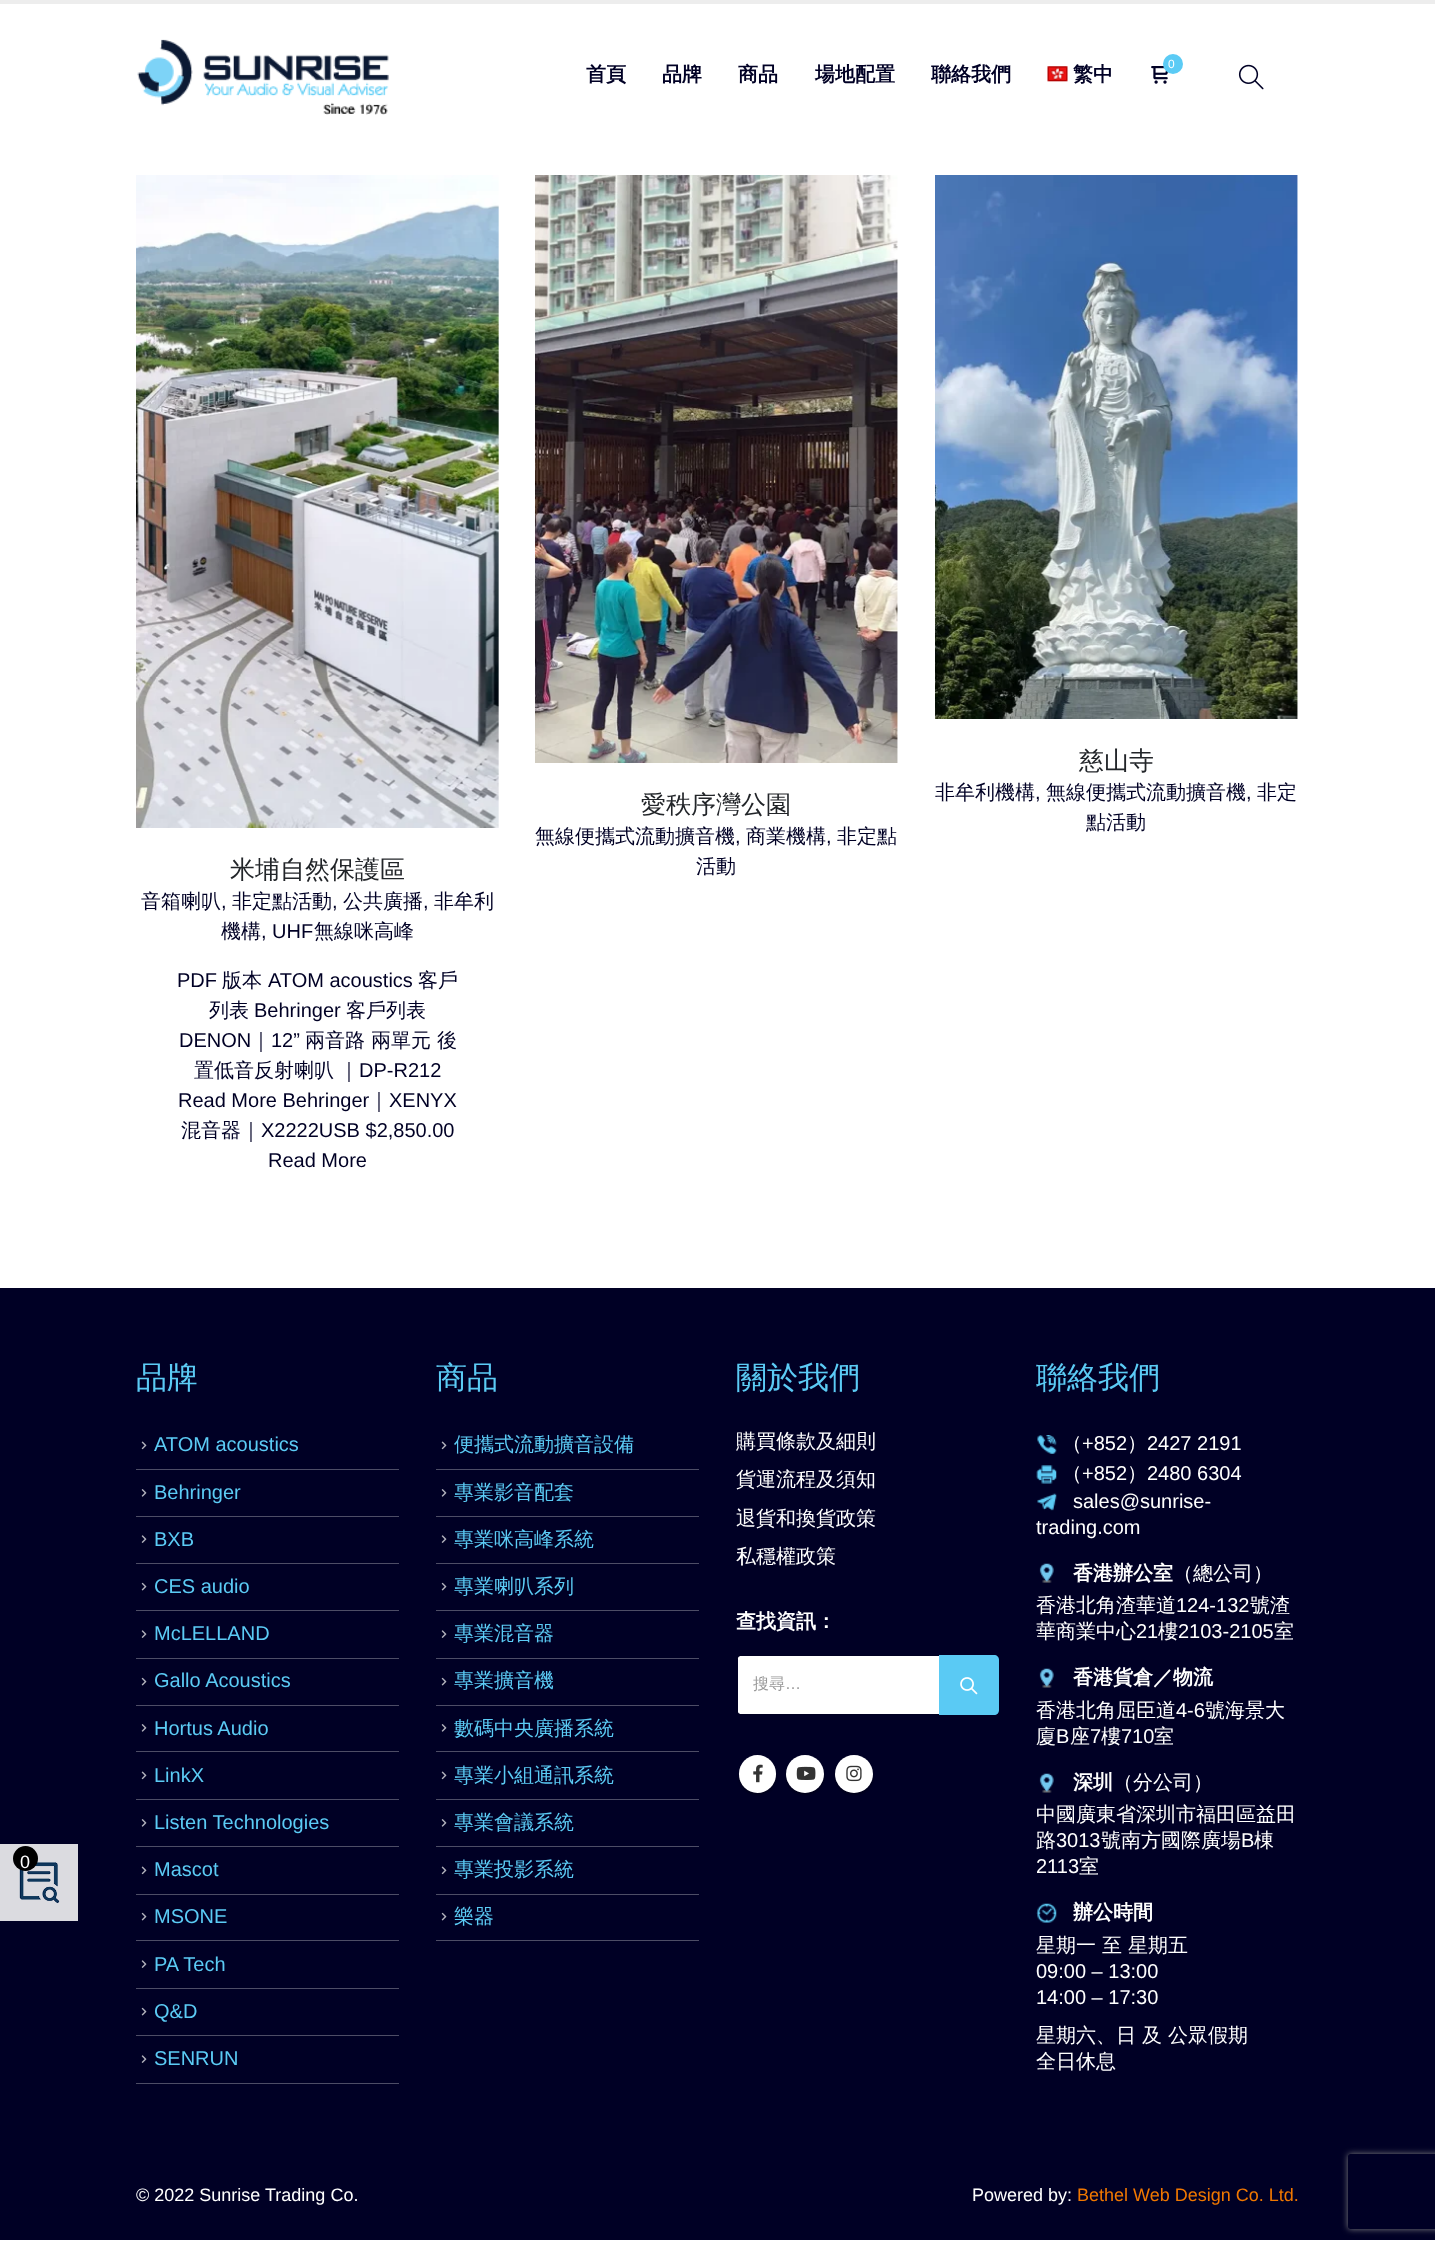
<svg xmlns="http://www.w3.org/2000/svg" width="1435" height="2246">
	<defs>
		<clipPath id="clip1"><path d="M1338 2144H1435V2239H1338ZM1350.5 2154H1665.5C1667 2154 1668 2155 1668 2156.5V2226.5C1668 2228 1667 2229 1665.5 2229H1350.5C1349 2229 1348 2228 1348 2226.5V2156.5C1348 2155 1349 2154 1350.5 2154Z" clip-rule="evenodd" /></clipPath>
	</defs>
	<rect width="100%" height="100%" fill="#FFFFFF" />
	<rect x="0" y="1288" width="1435" height="952" fill="#000025" />
	<rect x="0" y="1844" width="78" height="77" fill="#DBDBE0" />
	<image x="19" y="1862" width="41" height="42" href="assets/img1.png" />
	<circle cx="25.5" cy="1858.5" r="12.5" fill="#000000" />
	<text x="20" y="1868" font-family="Liberation Sans" font-size="18" fill="#FFFFFF">0</text>
	<rect x="0" y="0" width="1435" height="4" fill="#EDEDED" />
	<image x="137" y="39" width="252" height="76" href="assets/img2.png" />
	<g font-family="WenQuanYi Zen Hei" font-size="20" font-weight="700" fill="#000025">
		<text x="586" y="81">首頁</text>
		<text x="662" y="81">品牌</text>
		<text x="738" y="81">商品</text>
		<text x="815" y="81">場地配置</text>
		<text x="931" y="81">聯絡我們</text>
	</g>
	<image x="1047" y="66" width="21" height="16" href="assets/img3.png" />
	<text x="1073" y="81" font-family="WenQuanYi Zen Hei" font-size="20" font-weight="700" fill="#000025">繁中</text>
	<image x="1151" y="66" width="17" height="18" href="assets/img4.png" />
	<circle cx="1173" cy="64" r="10" fill="#5BCBF5" />
	<text x="1168" y="68" font-family="Liberation Sans" font-size="12" fill="#FFFFFF">0</text>
	<image x="1238" y="64" width="26" height="26" href="assets/img5.png" />
	<image x="535" y="175" width="363" height="588" href="assets/img6.png" />
	<text x="641" y="813" font-family="WenQuanYi Zen Hei" font-size="25" font-weight="500" fill="#222529">愛秩序灣公園</text>
	<text x="535" y="843" font-family="WenQuanYi Zen Hei" font-size="20" font-weight="500" fill="#000025">無線便攜式流動擴音機</text>
	<text x="735" y="843" font-family="Liberation Sans" font-size="20" fill="#000025">,</text>
	<text x="746" y="843" font-family="WenQuanYi Zen Hei" font-size="20" font-weight="500" fill="#000025">商業機構</text>
	<text x="826" y="843" font-family="Liberation Sans" font-size="20" fill="#000025">,</text>
	<g font-family="WenQuanYi Zen Hei" font-size="20" font-weight="500" fill="#000025">
		<text x="837" y="843">非定點</text>
		<text x="696" y="873">活動</text>
	</g>
	<image x="935" y="175" width="363" height="544" href="assets/img7.png" />
	<text x="1079" y="769" font-family="WenQuanYi Zen Hei" font-size="25" font-weight="500" fill="#222529">慈山寺</text>
	<text x="935" y="799" font-family="WenQuanYi Zen Hei" font-size="20" font-weight="500" fill="#000025">非牟利機構</text>
	<text x="1035" y="799" font-family="Liberation Sans" font-size="20" fill="#000025">,</text>
	<text x="1046" y="799" font-family="WenQuanYi Zen Hei" font-size="20" font-weight="500" fill="#000025">無線便攜式流動擴音機</text>
	<text x="1246" y="799" font-family="Liberation Sans" font-size="20" fill="#000025">,</text>
	<g font-family="WenQuanYi Zen Hei" font-size="20" font-weight="500" fill="#000025">
		<text x="1257" y="799">非定</text>
		<text x="1086" y="829">點活動</text>
	</g>
	<image x="136" y="175" width="363" height="653" href="assets/img8.png" />
	<text x="230" y="878" font-family="WenQuanYi Zen Hei" font-size="25" font-weight="500" fill="#222529">米埔自然保護區</text>
	<text x="141" y="908" font-family="WenQuanYi Zen Hei" font-size="20" font-weight="500" fill="#000025">音箱喇叭</text>
	<text x="221" y="908" font-family="Liberation Sans" font-size="20" fill="#000025">,</text>
	<text x="232" y="908" font-family="WenQuanYi Zen Hei" font-size="20" font-weight="500" fill="#000025">非定點活動</text>
	<text x="332" y="908" font-family="Liberation Sans" font-size="20" fill="#000025">,</text>
	<text x="343" y="908" font-family="WenQuanYi Zen Hei" font-size="20" font-weight="500" fill="#000025">公共廣播</text>
	<text x="423" y="908" font-family="Liberation Sans" font-size="20" fill="#000025">,</text>
	<g font-family="WenQuanYi Zen Hei" font-size="20" font-weight="500" fill="#000025">
		<text x="434" y="908">非牟利</text>
		<text x="221" y="938">機構</text>
	</g>
	<text x="261" y="938" font-family="Liberation Sans" font-size="20" fill="#000025">, UHF</text>
	<text x="314" y="938" font-family="WenQuanYi Zen Hei" font-size="20" font-weight="500" fill="#000025">無線咪高峰</text>
	<text x="177" y="987" font-family="Liberation Sans" font-size="20" fill="#000025">PDF</text>
	<text x="222" y="987" font-family="WenQuanYi Zen Hei" font-size="20" font-weight="500" fill="#000025">版本</text>
	<text x="268" y="987" font-family="Liberation Sans" font-size="20" fill="#000025">ATOM acoustics</text>
	<g font-family="WenQuanYi Zen Hei" font-size="20" font-weight="500" fill="#000025">
		<text x="418" y="987">客戶</text>
		<text x="209" y="1017">列表</text>
	</g>
	<text x="254" y="1017" font-family="Liberation Sans" font-size="20" fill="#000025">Behringer</text>
	<text x="346" y="1017" font-family="WenQuanYi Zen Hei" font-size="20" font-weight="500" fill="#000025">客戶列表</text>
	<text x="179" y="1047" font-family="Liberation Sans" font-size="20" fill="#000025">DENON</text>
	<text x="251" y="1047" font-family="WenQuanYi Zen Hei" font-size="20" font-weight="500" fill="#000025">｜</text>
	<text x="271" y="1047" font-family="Liberation Sans" font-size="20" fill="#000025">12”</text>
	<g font-family="WenQuanYi Zen Hei" font-size="20" font-weight="500" fill="#000025">
		<text x="305" y="1047">兩音路 兩單元 後</text>
		<text x="194" y="1077">置低音反射喇叭</text>
		<text x="339" y="1077">｜</text>
	</g>
	<g font-family="Liberation Sans" font-size="20" fill="#000025">
		<text x="359" y="1077">DP-R212</text>
		<text x="178" y="1107">Read More Behringer</text>
	</g>
	<text x="369" y="1107" font-family="WenQuanYi Zen Hei" font-size="20" font-weight="500" fill="#000025">｜</text>
	<text x="389" y="1107" font-family="Liberation Sans" font-size="20" fill="#000025">XENYX</text>
	<text x="181" y="1137" font-family="WenQuanYi Zen Hei" font-size="20" font-weight="500" fill="#000025">混音器｜</text>
	<g font-family="Liberation Sans" font-size="20" fill="#000025">
		<text x="261" y="1137">X2222USB $2,850.00</text>
		<text x="268" y="1167">Read More</text>
	</g>
	<text x="136" y="1388" font-family="WenQuanYi Zen Hei" font-size="31" font-weight="500" fill="#5BCBF5">品牌</text>
	<rect x="136" y="2083" width="263" height="1" fill="#4D4D66" />
	<image x="141" y="1441" width="6" height="9" href="assets/img9.png" />
	<text x="154" y="1451" font-family="Liberation Sans" font-size="20" fill="#5BCBF5">ATOM acoustics</text>
	<rect x="136" y="1469" width="263" height="1" fill="#4D4D66" />
	<image x="141" y="1489" width="6" height="8" href="assets/img10.png" />
	<text x="154" y="1499" font-family="Liberation Sans" font-size="20" fill="#5BCBF5">Behringer</text>
	<rect x="136" y="1516" width="263" height="1" fill="#4D4D66" />
	<image x="141" y="1535" width="6" height="8" href="assets/img11.png" />
	<text x="154" y="1546" font-family="Liberation Sans" font-size="20" fill="#5BCBF5">BXB</text>
	<rect x="136" y="1563" width="263" height="1" fill="#4D4D66" />
	<image x="141" y="1582" width="6" height="9" href="assets/img12.png" />
	<text x="154" y="1593" font-family="Liberation Sans" font-size="20" fill="#5BCBF5">CES audio</text>
	<rect x="136" y="1610" width="263" height="1" fill="#4D4D66" />
	<image x="141" y="1630" width="6" height="8" href="assets/img11.png" />
	<text x="154" y="1640" font-family="Liberation Sans" font-size="20" fill="#5BCBF5">McLELLAND</text>
	<rect x="136" y="1658" width="263" height="1" fill="#4D4D66" />
	<image x="141" y="1677" width="6" height="9" href="assets/img12.png" />
	<text x="154" y="1687" font-family="Liberation Sans" font-size="20" fill="#5BCBF5">Gallo Acoustics</text>
	<rect x="136" y="1705" width="263" height="1" fill="#4D4D66" />
	<image x="141" y="1724" width="6" height="8" href="assets/img10.png" />
	<text x="154" y="1735" font-family="Liberation Sans" font-size="20" fill="#5BCBF5">Hortus Audio</text>
	<rect x="136" y="1751" width="263" height="1" fill="#4D4D66" />
	<image x="141" y="1771" width="6" height="9" href="assets/img9.png" />
	<text x="154" y="1782" font-family="Liberation Sans" font-size="20" fill="#5BCBF5">LinkX</text>
	<rect x="136" y="1799" width="263" height="1" fill="#4D4D66" />
	<image x="141" y="1819" width="6" height="8" href="assets/img10.png" />
	<text x="154" y="1829" font-family="Liberation Sans" font-size="20" fill="#5BCBF5">Listen Technologies</text>
	<rect x="136" y="1846" width="263" height="1" fill="#4D4D66" />
	<image x="141" y="1866" width="6" height="9" href="assets/img9.png" />
	<text x="154" y="1876" font-family="Liberation Sans" font-size="20" fill="#5BCBF5">Mascot</text>
	<rect x="136" y="1894" width="263" height="1" fill="#4D4D66" />
	<image x="141" y="1912" width="6" height="9" href="assets/img12.png" />
	<text x="154" y="1923" font-family="Liberation Sans" font-size="20" fill="#5BCBF5">MSONE</text>
	<rect x="136" y="1940" width="263" height="1" fill="#4D4D66" />
	<image x="141" y="1960" width="6" height="8" href="assets/img11.png" />
	<text x="154" y="1971" font-family="Liberation Sans" font-size="20" fill="#5BCBF5">PA Tech</text>
	<rect x="136" y="1988" width="263" height="1" fill="#4D4D66" />
	<image x="141" y="2007" width="6" height="9" href="assets/img12.png" />
	<text x="154" y="2018" font-family="Liberation Sans" font-size="20" fill="#5BCBF5">Q&amp;D</text>
	<rect x="136" y="2035" width="263" height="1" fill="#4D4D66" />
	<image x="141" y="2055" width="6" height="8" href="assets/img11.png" />
	<text x="154" y="2065" font-family="Liberation Sans" font-size="20" fill="#5BCBF5">SENRUN</text>
	<text x="436" y="1388" font-family="WenQuanYi Zen Hei" font-size="31" font-weight="500" fill="#5BCBF5">商品</text>
	<rect x="436" y="1940" width="263" height="1" fill="#4D4D66" />
	<image x="441" y="1441" width="6" height="9" href="assets/img9.png" />
	<text x="454" y="1451" font-family="WenQuanYi Zen Hei" font-size="20" font-weight="500" fill="#5BCBF5">便攜式流動擴音設備</text>
	<rect x="436" y="1469" width="263" height="1" fill="#4D4D66" />
	<image x="441" y="1489" width="6" height="8" href="assets/img10.png" />
	<text x="454" y="1499" font-family="WenQuanYi Zen Hei" font-size="20" font-weight="500" fill="#5BCBF5">專業影音配套</text>
	<rect x="436" y="1516" width="263" height="1" fill="#4D4D66" />
	<image x="441" y="1535" width="6" height="8" href="assets/img11.png" />
	<text x="454" y="1546" font-family="WenQuanYi Zen Hei" font-size="20" font-weight="500" fill="#5BCBF5">專業咪高峰系統</text>
	<rect x="436" y="1563" width="263" height="1" fill="#4D4D66" />
	<image x="441" y="1582" width="6" height="9" href="assets/img12.png" />
	<text x="454" y="1593" font-family="WenQuanYi Zen Hei" font-size="20" font-weight="500" fill="#5BCBF5">專業喇叭系列</text>
	<rect x="436" y="1610" width="263" height="1" fill="#4D4D66" />
	<image x="441" y="1630" width="6" height="8" href="assets/img11.png" />
	<text x="454" y="1640" font-family="WenQuanYi Zen Hei" font-size="20" font-weight="500" fill="#5BCBF5">專業混音器</text>
	<rect x="436" y="1658" width="263" height="1" fill="#4D4D66" />
	<image x="441" y="1677" width="6" height="9" href="assets/img12.png" />
	<text x="454" y="1687" font-family="WenQuanYi Zen Hei" font-size="20" font-weight="500" fill="#5BCBF5">專業擴音機</text>
	<rect x="436" y="1705" width="263" height="1" fill="#4D4D66" />
	<image x="441" y="1724" width="6" height="8" href="assets/img10.png" />
	<text x="454" y="1735" font-family="WenQuanYi Zen Hei" font-size="20" font-weight="500" fill="#5BCBF5">數碼中央廣播系統</text>
	<rect x="436" y="1751" width="263" height="1" fill="#4D4D66" />
	<image x="441" y="1771" width="6" height="9" href="assets/img9.png" />
	<text x="454" y="1782" font-family="WenQuanYi Zen Hei" font-size="20" font-weight="500" fill="#5BCBF5">專業小組通訊系統</text>
	<rect x="436" y="1799" width="263" height="1" fill="#4D4D66" />
	<image x="441" y="1819" width="6" height="8" href="assets/img10.png" />
	<text x="454" y="1829" font-family="WenQuanYi Zen Hei" font-size="20" font-weight="500" fill="#5BCBF5">專業會議系統</text>
	<rect x="436" y="1846" width="263" height="1" fill="#4D4D66" />
	<image x="441" y="1866" width="6" height="9" href="assets/img9.png" />
	<text x="454" y="1876" font-family="WenQuanYi Zen Hei" font-size="20" font-weight="500" fill="#5BCBF5">專業投影系統</text>
	<rect x="436" y="1894" width="263" height="1" fill="#4D4D66" />
	<image x="441" y="1912" width="6" height="9" href="assets/img12.png" />
	<text x="454" y="1923" font-family="WenQuanYi Zen Hei" font-size="20" font-weight="500" fill="#5BCBF5">樂器</text>
	<text x="736" y="1388" font-family="WenQuanYi Zen Hei" font-size="31" font-weight="500" fill="#5BCBF5">關於我們</text>
	<g font-family="WenQuanYi Zen Hei" font-size="20" font-weight="500" fill="#FFFFFF">
		<text x="736" y="1448">購買條款及細則</text>
		<text x="736" y="1486">貨運流程及須知</text>
		<text x="736" y="1525">退貨和換貨政策</text>
		<text x="736" y="1563">私穩權政策</text>
	</g>
	<text x="736" y="1628" font-family="WenQuanYi Zen Hei" font-size="20" font-weight="700" fill="#FFFFFF">查找資訊：</text>
	<path d="M740.5 1656H939V1714H740.5C739 1714 738 1713 738 1711.5V1658.5C738 1657 739 1656 740.5 1656Z" fill="#FFFFFF" />
	<path d="M740 1655.5H939.5V1714.5H740C738 1714.5 736.5 1713 736.5 1711V1659C736.5 1657 738 1655.5 740 1655.5Z" fill="none" stroke="#000022" />
	<text x="753" y="1689" font-family="WenQuanYi Zen Hei" font-size="16" font-weight="500" fill="#999999">搜尋</text>
	<text x="785" y="1689" font-family="Liberation Sans" font-size="16" fill="#999999">…</text>
	<path d="M939 1655H994C997 1655 999 1657 999 1660V1710C999 1713 997 1715 994 1715H939Z" fill="#5ACAF4" />
	<image x="960" y="1677" width="18" height="18" href="assets/img13.png" />
	<rect x="739" y="1758" width="37" height="37" rx="18.5" fill="#000000" fill-opacity="0.3" filter="blur(1px)" />
	<rect x="739" y="1755" width="37" height="38" rx="18.5" fill="#FFFFFF" />
	<image x="753" y="1764" width="10" height="19" href="assets/img14.png" />
	<rect x="786" y="1758" width="38" height="37" rx="18.5" fill="#000000" fill-opacity="0.3" filter="blur(1px)" />
	<circle cx="805" cy="1774" r="19" fill="#FFFFFF" />
	<image x="796" y="1766" width="20" height="14" href="assets/img15.png" />
	<rect x="835" y="1758" width="38" height="37" rx="18.5" fill="#000000" fill-opacity="0.3" filter="blur(1px)" />
	<circle cx="854" cy="1774" r="19" fill="#FFFFFF" />
	<image x="846" y="1765" width="16" height="17" href="assets/img16.png" />
	<text x="1036" y="1388" font-family="WenQuanYi Zen Hei" font-size="31" font-weight="500" fill="#5BCBF5">聯絡我們</text>
	<image x="1037" y="1435" width="20" height="19" href="assets/img17.png" />
	<text x="1062" y="1450" font-family="WenQuanYi Zen Hei" font-size="20" font-weight="500" fill="#FFFFFF">（</text>
	<text x="1082" y="1450" font-family="Liberation Sans" font-size="20" fill="#FFFFFF">+852</text>
	<text x="1127" y="1450" font-family="WenQuanYi Zen Hei" font-size="20" font-weight="500" fill="#FFFFFF">）</text>
	<text x="1147" y="1450" font-family="Liberation Sans" font-size="20" fill="#FFFFFF">2427 2191</text>
	<image x="1036" y="1465" width="21" height="19" href="assets/img18.png" />
	<text x="1062" y="1480" font-family="WenQuanYi Zen Hei" font-size="20" font-weight="500" fill="#FFFFFF">（</text>
	<text x="1082" y="1480" font-family="Liberation Sans" font-size="20" fill="#FFFFFF">+852</text>
	<text x="1127" y="1480" font-family="WenQuanYi Zen Hei" font-size="20" font-weight="500" fill="#FFFFFF">）</text>
	<text x="1147" y="1480" font-family="Liberation Sans" font-size="20" fill="#FFFFFF">2480 6304</text>
	<image x="1037" y="1493" width="20" height="18" href="assets/img19.png" />
	<g font-family="Liberation Sans" font-size="20" fill="#FFFFFF">
		<text x="1073" y="1508">sales@sunrise-</text>
		<text x="1036" y="1534">trading.com</text>
	</g>
	<image x="1039" y="1563" width="15" height="20" href="assets/img20.png" />
	<text x="1073" y="1580" font-family="WenQuanYi Zen Hei" font-size="20" font-weight="700" fill="#FFFFFF">香港辦公室</text>
	<g font-family="WenQuanYi Zen Hei" font-size="20" font-weight="500" fill="#FFFFFF">
		<text x="1173" y="1580">（總公司）</text>
		<text x="1036" y="1612">香港北角渣華道</text>
	</g>
	<text x="1176" y="1612" font-family="Liberation Sans" font-size="20" fill="#FFFFFF">124-132</text>
	<g font-family="WenQuanYi Zen Hei" font-size="20" font-weight="500" fill="#FFFFFF">
		<text x="1250" y="1612">號渣</text>
		<text x="1036" y="1638">華商業中心</text>
	</g>
	<text x="1136" y="1638" font-family="Liberation Sans" font-size="20" fill="#FFFFFF">21</text>
	<text x="1158" y="1638" font-family="WenQuanYi Zen Hei" font-size="20" font-weight="500" fill="#FFFFFF">樓</text>
	<text x="1178" y="1638" font-family="Liberation Sans" font-size="20" fill="#FFFFFF">2103-2105</text>
	<text x="1274" y="1638" font-family="WenQuanYi Zen Hei" font-size="20" font-weight="500" fill="#FFFFFF">室</text>
	<image x="1039" y="1668" width="15" height="20" href="assets/img21.png" />
	<text x="1073" y="1684" font-family="WenQuanYi Zen Hei" font-size="20" font-weight="700" fill="#FFFFFF">香港貨倉／物流</text>
	<text x="1036" y="1717" font-family="WenQuanYi Zen Hei" font-size="20" font-weight="500" fill="#FFFFFF">香港北角屈臣道</text>
	<text x="1176" y="1717" font-family="Liberation Sans" font-size="20" fill="#FFFFFF">4-6</text>
	<g font-family="WenQuanYi Zen Hei" font-size="20" font-weight="500" fill="#FFFFFF">
		<text x="1205" y="1717">號海景大</text>
		<text x="1036" y="1743">廈</text>
	</g>
	<text x="1056" y="1743" font-family="Liberation Sans" font-size="20" fill="#FFFFFF">B</text>
	<text x="1070" y="1743" font-family="WenQuanYi Zen Hei" font-size="20" font-weight="500" fill="#FFFFFF">座</text>
	<text x="1090" y="1743" font-family="Liberation Sans" font-size="20" fill="#FFFFFF">7</text>
	<text x="1101" y="1743" font-family="WenQuanYi Zen Hei" font-size="20" font-weight="500" fill="#FFFFFF">樓</text>
	<text x="1121" y="1743" font-family="Liberation Sans" font-size="20" fill="#FFFFFF">710</text>
	<text x="1154" y="1743" font-family="WenQuanYi Zen Hei" font-size="20" font-weight="500" fill="#FFFFFF">室</text>
	<image x="1039" y="1773" width="15" height="20" href="assets/img21.png" />
	<text x="1073" y="1789" font-family="WenQuanYi Zen Hei" font-size="20" font-weight="700" fill="#FFFFFF">深圳</text>
	<g font-family="WenQuanYi Zen Hei" font-size="20" font-weight="500" fill="#FFFFFF">
		<text x="1113" y="1789">（分公司）</text>
		<text x="1036" y="1821">中國廣東省深圳市福田區益田</text>
		<text x="1036" y="1847">路</text>
	</g>
	<text x="1056" y="1847" font-family="Liberation Sans" font-size="20" fill="#FFFFFF">3013</text>
	<text x="1101" y="1847" font-family="WenQuanYi Zen Hei" font-size="20" font-weight="500" fill="#FFFFFF">號南方國際廣場</text>
	<text x="1241" y="1847" font-family="Liberation Sans" font-size="20" fill="#FFFFFF">B</text>
	<text x="1254" y="1847" font-family="WenQuanYi Zen Hei" font-size="20" font-weight="500" fill="#FFFFFF">棟</text>
	<text x="1036" y="1873" font-family="Liberation Sans" font-size="20" fill="#FFFFFF">2113</text>
	<text x="1079" y="1873" font-family="WenQuanYi Zen Hei" font-size="20" font-weight="500" fill="#FFFFFF">室</text>
	<image x="1036" y="1903" width="21" height="20" href="assets/img22.png" />
	<text x="1073" y="1919" font-family="WenQuanYi Zen Hei" font-size="20" font-weight="700" fill="#FFFFFF">辦公時間</text>
	<text x="1036" y="1952" font-family="WenQuanYi Zen Hei" font-size="20" font-weight="500" fill="#FFFFFF">星期一 至 星期五</text>
	<g font-family="Liberation Sans" font-size="20" fill="#FFFFFF">
		<text x="1036" y="1978">09:00 – 13:00</text>
		<text x="1036" y="2004">14:00 – 17:30</text>
	</g>
	<g font-family="WenQuanYi Zen Hei" font-size="20" font-weight="500" fill="#FFFFFF">
		<text x="1036" y="2042">星期六、日 及 公眾假期</text>
		<text x="1036" y="2068">全日休息</text>
	</g>
	<g font-family="Liberation Sans" font-size="18" fill="#FFFFFF">
		<text x="136" y="2201">© 2022 Sunrise Trading Co.</text>
		<text x="972" y="2201">Powered by:</text>
	</g>
	<text x="1077" y="2201" font-family="Liberation Sans" font-size="18" fill="#F07700">Bethel Web Design Co. Ltd.</text>
	<g clip-path="url(#clip1)">
		<rect x="1348" y="2154" width="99" height="75" rx="2.5" fill="#808080" filter="blur(3px)" />
	</g>
</svg>
